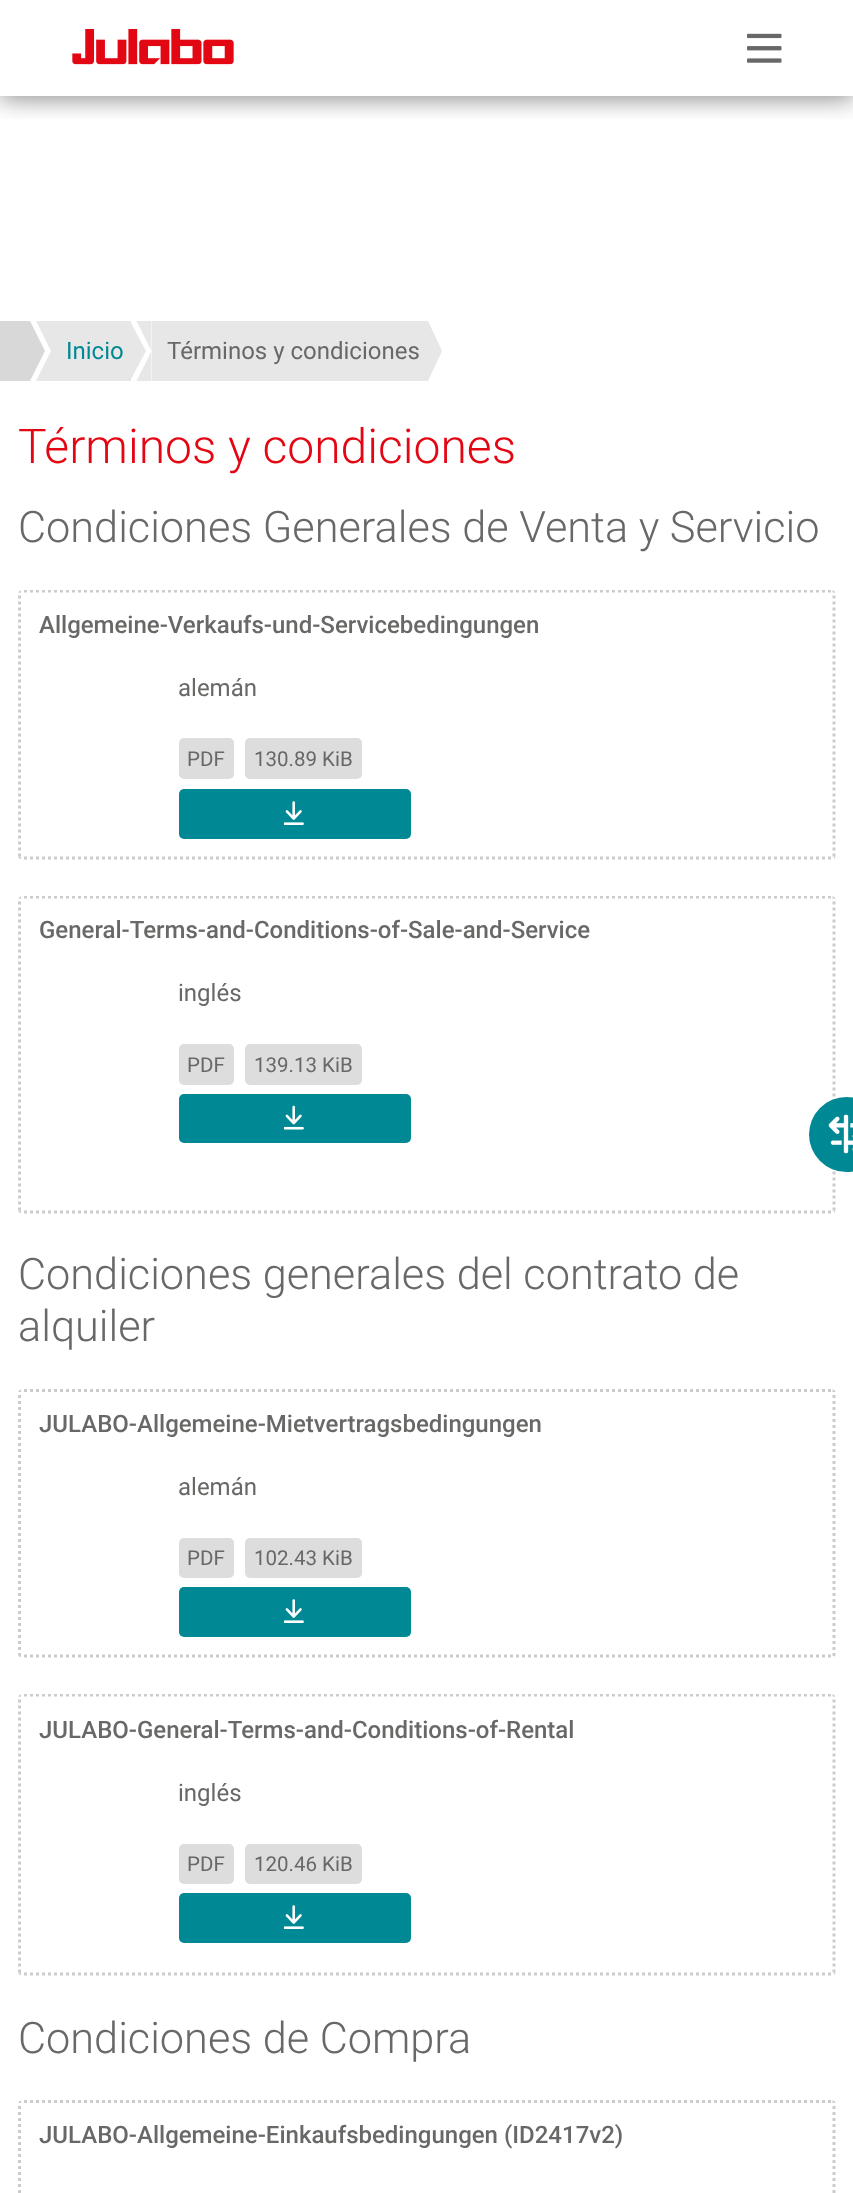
<svg xmlns="http://www.w3.org/2000/svg" width="853" height="2193">
	<defs>
		<clipPath id="clip1"><rect x="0" y="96" width="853" height="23" /></clipPath>
		<clipPath id="clip2"><rect x="18" y="590" width="818" height="270" rx="5" /></clipPath>
		<clipPath id="clip3"><rect x="18" y="896" width="818" height="318" rx="5" /></clipPath>
		<clipPath id="clip4"><rect x="18" y="1389" width="818" height="269" rx="5" /></clipPath>
		<clipPath id="clip5"><rect x="18" y="1694" width="818" height="282" rx="5" /></clipPath>
		<clipPath id="clip6"><rect x="18" y="2100" width="818" height="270" rx="5" /></clipPath>
	</defs>
	<rect width="100%" height="100%" fill="#FFFFFF" />
	<g clip-path="url(#clip1)">
		<rect x="0" y="3" width="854" height="96" fill="#000000" fill-opacity="0.45" filter="blur(12px)" />
	</g>
	<image x="72" y="29" width="162" height="36" href="assets/img1.png" />
	<image x="747" y="33" width="35" height="30" href="assets/img2.png" />
	<rect x="0" y="321" width="30" height="60" fill="#D8D8D8" />
	<path d="M30 381V321L45 351Z" fill="#D8D8D8" />
	<rect x="51" y="321" width="80" height="60" fill="#E7E7E7" />
	<path d="M36 321H51V351ZM51 381H36L51 351Z" fill="#E7E7E7" />
	<text x="66" y="359" font-family="Roboto" font-size="24" fill="#008995">Inicio</text>
	<path d="M130 381V321L146 351Z" fill="#E7E7E7" />
	<rect x="152" y="321" width="276" height="60" fill="#E7E7E7" />
	<path d="M136.5 321H151.5V351ZM151.5 381H136.5L151.5 351Z" fill="#E7E7E7" />
	<text x="167" y="359" font-family="Roboto" font-size="24" fill="#686867">Términos y condiciones</text>
	<path d="M428 381V321L442 351Z" fill="#E7E7E7" />
	<text x="18" y="463" font-family="Roboto" font-size="48" font-weight="300" fill="#E30613">Términos y condiciones</text>
	<text x="18" y="542" font-family="Roboto" font-size="43.25" font-weight="300" fill="#686867">Condiciones Generales de Venta y Servicio</text>
	<g clip-path="url(#clip2)">
		<path d="M18 591H835.5" fill="none" stroke="#CCCCCC" stroke-width="3" stroke-dasharray="3 3" />
		<path d="M834 589.5V859.5" fill="none" stroke="#CCCCCC" stroke-width="3" stroke-dasharray="3 3" />
		<path d="M18 858H835.5" fill="none" stroke="#CCCCCC" stroke-width="3" stroke-dasharray="3 3" />
		<path d="M19.5 589.5V859.5" fill="none" stroke="#CCCCCC" stroke-width="3" stroke-dasharray="3 3" />
	</g>
	<text x="39" y="633" font-family="Roboto" font-size="24" font-weight="500" fill="#686867">Allgemeine-Verkaufs-und-Servicebedingungen</text>
	<text x="178" y="696" font-family="Roboto" font-size="24" fill="#686867">alemán</text>
	<rect x="179" y="738" width="55" height="41" rx="5" fill="#DDDDDD" />
	<text x="187" y="766" font-family="Roboto" font-size="20.5" fill="#686867">PDF</text>
	<rect x="245" y="738" width="117" height="41" rx="5" fill="#DDDDDD" />
	<text x="254" y="766" font-family="Roboto" font-size="20.5" fill="#686867">130.89 KiB</text>
	<rect x="179" y="789" width="232" height="50" rx="5" fill="#008995" />
	<image x="284" y="801" width="20" height="24" href="assets/img3.png" />
	<g clip-path="url(#clip3)">
		<path d="M18 897H835.5" fill="none" stroke="#CCCCCC" stroke-width="3" stroke-dasharray="3 3" />
		<path d="M834 895.5V1213.5" fill="none" stroke="#CCCCCC" stroke-width="3" stroke-dasharray="3 3" />
		<path d="M18 1212H835.5" fill="none" stroke="#CCCCCC" stroke-width="3" stroke-dasharray="3 3" />
		<path d="M19.5 895.5V1213.5" fill="none" stroke="#CCCCCC" stroke-width="3" stroke-dasharray="3 3" />
	</g>
	<text x="39" y="938" font-family="Roboto" font-size="24" font-weight="500" fill="#686867">General-Terms-and-Conditions-of-Sale-and-Service</text>
	<text x="178" y="1001" font-family="Roboto" font-size="24" fill="#686867">inglés</text>
	<rect x="179" y="1044" width="55" height="41" rx="5" fill="#DDDDDD" />
	<text x="187" y="1072" font-family="Roboto" font-size="20.5" fill="#686867">PDF</text>
	<rect x="245" y="1044" width="117" height="41" rx="5" fill="#DDDDDD" />
	<text x="254" y="1072" font-family="Roboto" font-size="20.5" fill="#686867">139.13 KiB</text>
	<rect x="179" y="1094" width="232" height="49" rx="5" fill="#008995" />
	<image x="284" y="1105" width="20" height="25" href="assets/img4.png" />
	<g font-family="Roboto" font-size="43.25" font-weight="300" fill="#686867">
		<text x="18" y="1289">Condiciones generales del contrato de</text>
		<text x="18" y="1341">alquiler</text>
	</g>
	<g clip-path="url(#clip4)">
		<path d="M18 1390.5H835.5" fill="none" stroke="#CCCCCC" stroke-width="3" stroke-dasharray="3 3" />
		<path d="M834 1389V1657.5" fill="none" stroke="#CCCCCC" stroke-width="3" stroke-dasharray="3 3" />
		<path d="M18 1656H835.5" fill="none" stroke="#CCCCCC" stroke-width="3" stroke-dasharray="3 3" />
		<path d="M19.5 1389V1657.5" fill="none" stroke="#CCCCCC" stroke-width="3" stroke-dasharray="3 3" />
	</g>
	<text x="39" y="1432" font-family="Roboto" font-size="24" font-weight="500" fill="#686867">JULABO-Allgemeine-Mietvertragsbedingungen</text>
	<text x="178" y="1495" font-family="Roboto" font-size="24" fill="#686867">alemán</text>
	<rect x="179" y="1538" width="55" height="40" rx="5" fill="#DDDDDD" />
	<text x="187" y="1565" font-family="Roboto" font-size="20.5" fill="#686867">PDF</text>
	<rect x="245" y="1538" width="117" height="40" rx="5" fill="#DDDDDD" />
	<text x="254" y="1565" font-family="Roboto" font-size="20.5" fill="#686867">102.43 KiB</text>
	<rect x="179" y="1587" width="232" height="50" rx="5" fill="#008995" />
	<image x="284" y="1599" width="20" height="24" href="assets/img3.png" />
	<g clip-path="url(#clip5)">
		<path d="M18 1695H835.5" fill="none" stroke="#CCCCCC" stroke-width="3" stroke-dasharray="3 3" />
		<path d="M834 1693.5V1975.5" fill="none" stroke="#CCCCCC" stroke-width="3" stroke-dasharray="3 3" />
		<path d="M18 1974H835.5" fill="none" stroke="#CCCCCC" stroke-width="3" stroke-dasharray="3 3" />
		<path d="M19.5 1693.5V1975.5" fill="none" stroke="#CCCCCC" stroke-width="3" stroke-dasharray="3 3" />
	</g>
	<text x="39" y="1738" font-family="Roboto" font-size="24" font-weight="500" fill="#686867">JULABO-General-Terms-and-Conditions-of-Rental</text>
	<text x="178" y="1801" font-family="Roboto" font-size="24" fill="#686867">inglés</text>
	<rect x="179" y="1844" width="55" height="40" rx="5" fill="#DDDDDD" />
	<text x="187" y="1871" font-family="Roboto" font-size="20.5" fill="#686867">PDF</text>
	<rect x="245" y="1844" width="117" height="40" rx="5" fill="#DDDDDD" />
	<text x="254" y="1871" font-family="Roboto" font-size="20.5" fill="#686867">120.46 KiB</text>
	<rect x="179" y="1893" width="232" height="50" rx="5" fill="#008995" />
	<image x="284" y="1905" width="20" height="24" href="assets/img3.png" />
	<text x="18" y="2053" font-family="Roboto" font-size="43.25" font-weight="300" fill="#686867">Condiciones de Compra</text>
	<g clip-path="url(#clip6)">
		<path d="M18 2101.5H835.5" fill="none" stroke="#CCCCCC" stroke-width="3" stroke-dasharray="3 3" />
		<path d="M834 2100V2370" fill="none" stroke="#CCCCCC" stroke-width="3" stroke-dasharray="3 3" />
		<path d="M19.5 2100V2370" fill="none" stroke="#CCCCCC" stroke-width="3" stroke-dasharray="3 3" />
	</g>
	<text x="39" y="2143" font-family="Roboto" font-size="24" font-weight="500" fill="#686867">JULABO-Allgemeine-Einkaufsbedingungen (ID2417v2)</text>
	<circle cx="846.5" cy="1134.5" r="37.5" fill="#008995" />
	<image x="828" y="1114" width="25" height="40" href="assets/img5.png" />
</svg>
